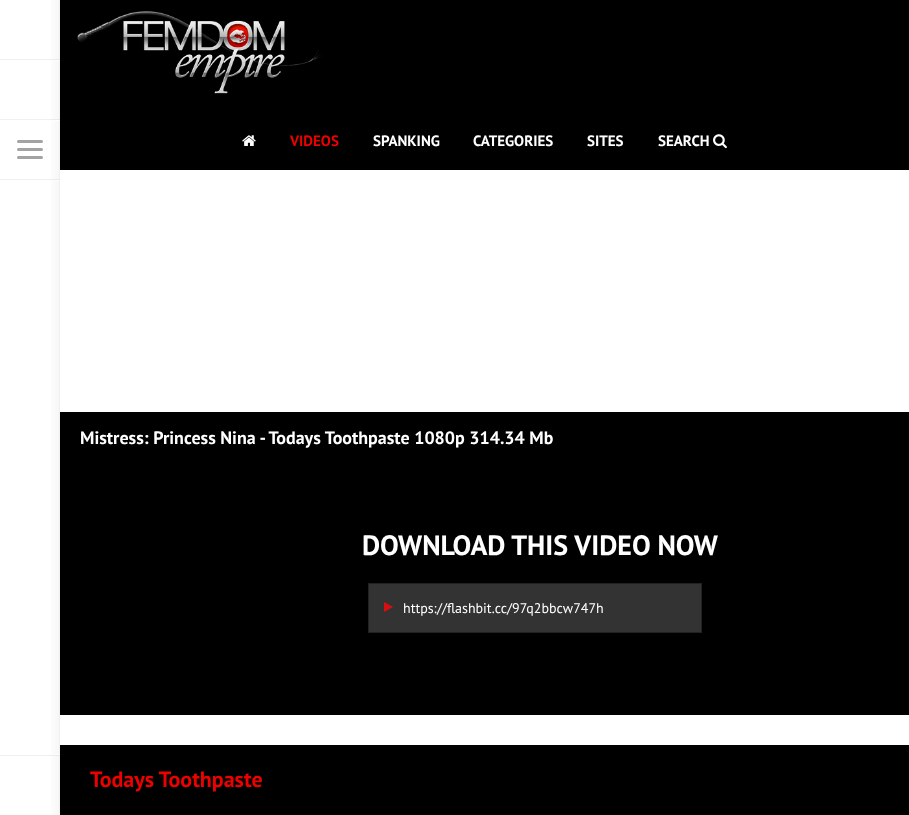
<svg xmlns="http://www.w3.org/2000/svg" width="909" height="815">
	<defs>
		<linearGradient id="g1" gradientUnits="userSpaceOnUse" x1="47" y1="408" x2="59" y2="408"><stop offset="0" stop-color="#FFFFFF" /><stop offset="1" stop-color="#F7F7F7" /></linearGradient>
		<linearGradient id="g2" gradientUnits="userSpaceOnUse" x1="47" y1="408" x2="59" y2="408"><stop offset="0" stop-color="#F0F0F0" /><stop offset="1" stop-color="#E8E8E8" /></linearGradient>
		<linearGradient id="g3" gradientUnits="userSpaceOnUse" x1="47" y1="408" x2="59" y2="408"><stop offset="0" stop-color="#FFFFFF" /><stop offset="1" stop-color="#FCFCFC" /></linearGradient>
	</defs>
	<rect width="100%" height="100%" fill="#FFFFFF" />
	<rect x="0" y="179" width="47" height="1" fill="#F0F0F0" />
	<rect x="0" y="119" width="47" height="1" fill="#F0F0F0" />
	<rect x="0" y="59" width="47" height="1" fill="#F0F0F0" />
	<rect x="0" y="755" width="47" height="1" fill="#F0F0F0" />
	<rect x="17" y="140" width="26" height="3" rx="1.5" fill="#A3A3A3" />
	<rect x="17" y="148" width="26" height="3" rx="1.5" fill="#A3A3A3" />
	<rect x="17" y="156" width="26" height="3" rx="1.5" fill="#A3A3A3" />
	<rect x="51" y="0" width="8" height="815" fill="url(#g1)" />
	<rect x="47" y="179" width="12" height="1" fill="url(#g2)" />
	<rect x="47" y="180" width="12" height="1" fill="url(#g3)" />
	<rect x="47" y="119" width="12" height="1" fill="url(#g2)" />
	<rect x="47" y="120" width="12" height="1" fill="url(#g3)" />
	<rect x="47" y="59" width="12" height="1" fill="url(#g2)" />
	<rect x="47" y="60" width="12" height="1" fill="url(#g3)" />
	<rect x="47" y="755" width="12" height="1" fill="url(#g2)" />
	<rect x="47" y="754" width="12" height="1" fill="url(#g3)" />
	<rect x="59" y="0" width="1" height="815" fill="#F0F0F0" />
	<rect x="59" y="179" width="1" height="1" fill="#E2E2E2" />
	<rect x="59" y="180" width="1" height="1" fill="#F9F9F9" />
	<rect x="59" y="119" width="1" height="1" fill="#E2E2E2" />
	<rect x="59" y="120" width="1" height="1" fill="#F9F9F9" />
	<rect x="59" y="59" width="1" height="1" fill="#E2E2E2" />
	<rect x="59" y="60" width="1" height="1" fill="#F9F9F9" />
	<rect x="59" y="755" width="1" height="1" fill="#E2E2E2" />
	<rect x="59" y="754" width="1" height="1" fill="#F9F9F9" />
	<rect x="60" y="0" width="849" height="170" fill="#000000" />
	<image x="77" y="11" width="246" height="83" href="assets/img1.png" />
	<image x="242" y="135" width="14" height="11" href="assets/img2.png" />
	<text x="290" y="146" font-family="PT Sans" font-size="15" font-weight="700" fill="#EC0000">VIDEOS</text>
	<g font-family="PT Sans" font-size="15" font-weight="700" fill="#FFFFFF">
		<text x="373" y="146">SPANKING</text>
		<text x="473" y="146">CATEGORIES</text>
		<text x="587" y="146">SITES</text>
		<text x="658" y="146">SEARCH</text>
	</g>
	<image x="713" y="134" width="14" height="15" href="assets/img3.png" />
	<rect x="60" y="412" width="849" height="303" fill="#000000" />
	<text x="80" y="444" font-family="PT Sans" font-size="18" font-weight="700" fill="#FFFFFF">Mistress: Princess Nina - Todays Toothpaste 1080p 314.34 Mb</text>
	<text x="362" y="555" font-family="PT Sans" font-size="28" font-weight="700" fill="#FFFFFF">DOWNLOAD THIS VIDEO NOW</text>
	<rect x="368.5" y="583.5" width="333" height="49" fill="#333333" stroke="#222222" />
	<image x="384" y="602" width="9" height="10" href="assets/img4.png" />
	<text x="403" y="613" font-family="PT Sans" font-size="14" fill="#FFFFFF">https://flashbit.cc/97q2bbcw747h</text>
	<rect x="60" y="745" width="849" height="70" fill="#000000" />
	<text x="90" y="787" font-family="PT Sans" font-size="22" font-weight="700" fill="#EC0000">Todays Toothpaste</text>
</svg>
